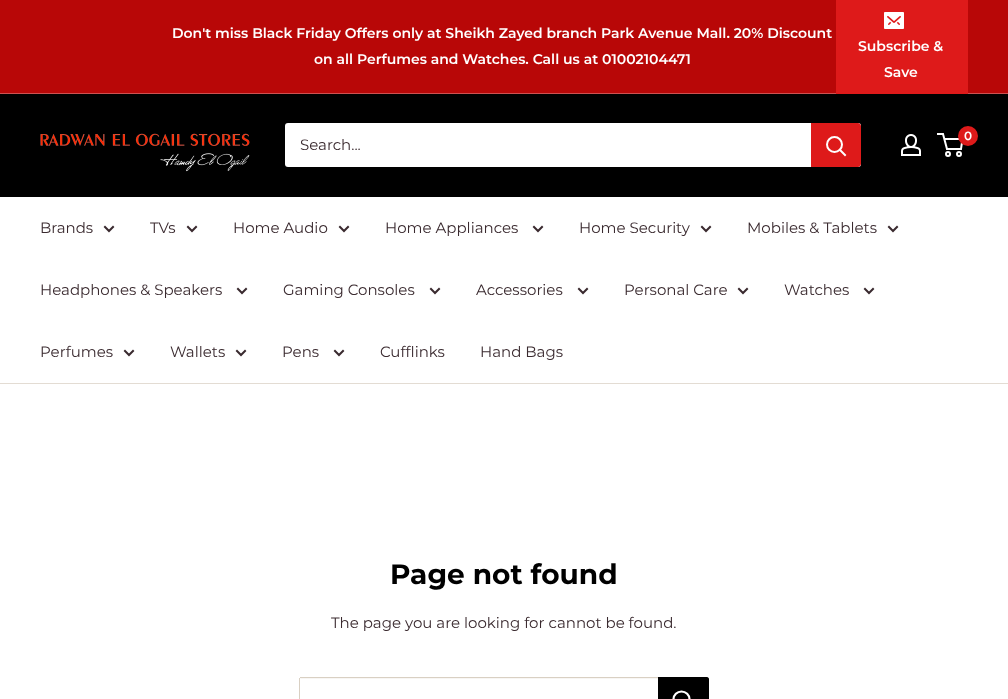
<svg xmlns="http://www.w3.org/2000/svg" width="1008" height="699">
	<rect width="100%" height="100%" fill="#FFFFFF" />
	<rect x="0" y="0" width="1008" height="93" fill="#B80707" />
	<rect x="0" y="93" width="1008" height="1" fill="#CD5151" />
	<g font-family="Montserrat" font-size="14" font-weight="600" fill="#FFFFFF">
		<text x="172" y="38">Don't miss Black Friday Offers only at Sheikh Zayed branch Park Avenue Mall. 20% Discount</text>
		<text x="314" y="64">on all Perfumes and Watches. Call us at 01002104471</text>
	</g>
	<rect x="836" y="0" width="132" height="94" fill="#DE1A1A" />
	<image x="884" y="12" width="20" height="17" href="assets/img1.png" />
	<g font-family="Montserrat" font-size="14" font-weight="600" fill="#FFFFFF">
		<text x="858" y="51">Subscribe &amp;</text>
		<text x="884" y="77">Save</text>
	</g>
	<rect x="0" y="94" width="1008" height="103" fill="#000000" />
	<image x="40" y="133" width="210" height="39" href="assets/img2.png" />
	<rect x="285" y="123" width="576" height="44" rx="3" fill="#FFFFFF" />
	<text x="300" y="150" font-family="Montserrat" font-size="15" fill="#3A2A2F">Search...</text>
	<path d="M811 123H858C859.5 123 861 124.5 861 126V164C861 165.5 859.5 167 858 167H811Z" fill="#DE1A1A" />
	<path d="M845 155L840 150" fill="none" stroke="#FFFFFF" stroke-width="2" stroke-linecap="square" />
	<circle cx="834.5" cy="144.5" r="7.5" fill="none" stroke="#FFFFFF" stroke-width="2" />
	<image x="901" y="134" width="20" height="22" href="assets/img3.png" />
	<circle cx="948" cy="154" r="2" fill="none" stroke="#FFFFFF" stroke-width="2" />
	<circle cx="959" cy="154" r="2" fill="none" stroke="#FFFFFF" stroke-width="2" />
	<path d="M944.5 139H962.5L961 149H947L943 134H937" fill="none" stroke="#FFFFFF" stroke-width="2" />
	<circle cx="968" cy="136" r="10" fill="#DE1A1A" />
	<text x="964" y="140" font-family="Montserrat" font-size="12" font-weight="600" fill="#FFFFFF">0</text>
	<rect x="0" y="383" width="1008" height="1" fill="#E3DCD3" />
	<text x="40" y="233" font-family="Montserrat" font-size="15" fill="#3A2A2F">Brands</text>
	<path d="M113 227L109 231L105 227" fill="none" stroke="#3A2A2F" stroke-width="2" stroke-linecap="square" />
	<text x="150" y="233" font-family="Montserrat" font-size="15" fill="#3A2A2F">TVs</text>
	<path d="M196 227L192 231L188 227" fill="none" stroke="#3A2A2F" stroke-width="2" stroke-linecap="square" />
	<text x="233" y="233" font-family="Montserrat" font-size="15" fill="#3A2A2F">Home Audio</text>
	<path d="M348 227L344 231L340 227" fill="none" stroke="#3A2A2F" stroke-width="2" stroke-linecap="square" />
	<text x="385" y="233" font-family="Montserrat" font-size="15" fill="#3A2A2F">Home Appliances</text>
	<path d="M542 227L538 231L534 227" fill="none" stroke="#3A2A2F" stroke-width="2" stroke-linecap="square" />
	<text x="579" y="233" font-family="Montserrat" font-size="15" fill="#3A2A2F">Home Security</text>
	<path d="M710 227L706 231L702 227" fill="none" stroke="#3A2A2F" stroke-width="2" stroke-linecap="square" />
	<text x="747" y="233" font-family="Montserrat" font-size="15" fill="#3A2A2F">Mobiles &amp; Tablets</text>
	<path d="M897 227L893 231L889 227" fill="none" stroke="#3A2A2F" stroke-width="2" stroke-linecap="square" />
	<text x="40" y="295" font-family="Montserrat" font-size="15" fill="#3A2A2F">Headphones &amp; Speakers</text>
	<path d="M246 289L242 293L238 289" fill="none" stroke="#3A2A2F" stroke-width="2" stroke-linecap="square" />
	<text x="283" y="295" font-family="Montserrat" font-size="15" fill="#3A2A2F">Gaming Consoles</text>
	<path d="M439 289L435 293L431 289" fill="none" stroke="#3A2A2F" stroke-width="2" stroke-linecap="square" />
	<text x="476" y="295" font-family="Montserrat" font-size="15" fill="#3A2A2F">Accessories</text>
	<path d="M587 289L583 293L579 289" fill="none" stroke="#3A2A2F" stroke-width="2" stroke-linecap="square" />
	<text x="624" y="295" font-family="Montserrat" font-size="15" fill="#3A2A2F">Personal Care</text>
	<path d="M747 289L743 293L739 289" fill="none" stroke="#3A2A2F" stroke-width="2" stroke-linecap="square" />
	<text x="784" y="295" font-family="Montserrat" font-size="15" fill="#3A2A2F">Watches</text>
	<path d="M873 289L869 293L865 289" fill="none" stroke="#3A2A2F" stroke-width="2" stroke-linecap="square" />
	<text x="40" y="357" font-family="Montserrat" font-size="15" fill="#3A2A2F">Perfumes</text>
	<path d="M133 351L129 355L125 351" fill="none" stroke="#3A2A2F" stroke-width="2" stroke-linecap="square" />
	<text x="170" y="357" font-family="Montserrat" font-size="15" fill="#3A2A2F">Wallets</text>
	<path d="M245 351L241 355L237 351" fill="none" stroke="#3A2A2F" stroke-width="2" stroke-linecap="square" />
	<text x="282" y="357" font-family="Montserrat" font-size="15" fill="#3A2A2F">Pens</text>
	<path d="M343 351L339 355L335 351" fill="none" stroke="#3A2A2F" stroke-width="2" stroke-linecap="square" />
	<g font-family="Montserrat" font-size="15" fill="#3A2A2F">
		<text x="380" y="357">Cufflinks</text>
		<text x="480" y="357">Hand Bags</text>
	</g>
	<text x="390" y="584" font-family="Montserrat" font-size="28" font-weight="700" fill="#000000">Page not found</text>
	<text x="331" y="628" font-family="Montserrat" font-size="15" fill="#3A2A2F">The page you are looking for cannot be found.</text>
	<path d="M301 679H658V678H301C300 678 300 679 300 680C300 679 300 679 301 679Z" fill="#F8F6F4" />
	<rect x="300" y="677" width="358" height="1" fill="#D9D0C3" />
	<rect x="299" y="678" width="1" height="21" fill="#D9D0C3" />
	<path d="M658 677H707C708 677 709 678 709 679V699C709 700 708 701 707 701H658Z" fill="#000000" />
	<circle cx="681.5" cy="699.5" r="8" fill="none" stroke="#FFFFFF" stroke-width="2.2" />
</svg>
